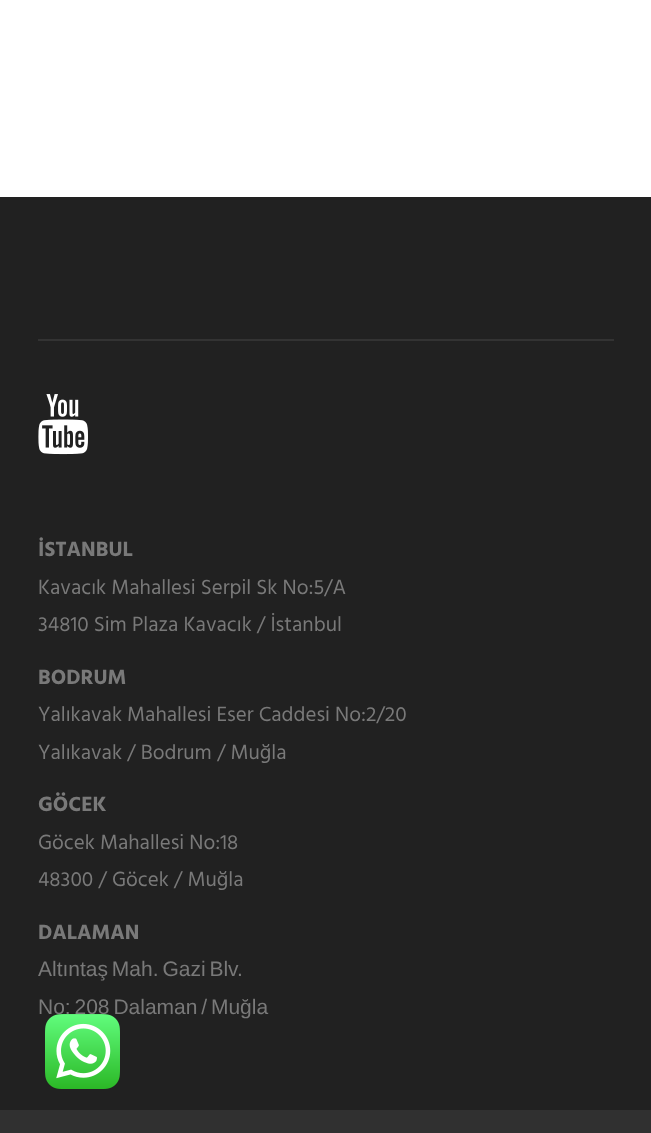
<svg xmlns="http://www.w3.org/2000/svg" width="651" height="1133">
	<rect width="100%" height="100%" fill="#FFFFFF" />
	<rect x="0" y="197" width="651" height="913" fill="#212121" />
	<rect x="38" y="339" width="576" height="2" fill="#333333" />
	<image x="38" y="394" width="50" height="61" href="assets/img1.png" />
	<text x="38" y="556" font-family="Hind" font-size="21" font-weight="700" fill="#797979">İSTANBUL</text>
	<g font-family="Hind" font-size="21" fill="#797979">
		<text x="38" y="594">Kavacık Mahallesi Serpil Sk No:5/A</text>
		<text x="38" y="631">34810 Sim Plaza Kavacık / İstanbul</text>
	</g>
	<text x="38" y="684" font-family="Hind" font-size="21" font-weight="700" fill="#797979">BODRUM</text>
	<g font-family="Hind" font-size="21" fill="#797979">
		<text x="38" y="721">Yalıkavak Mahallesi Eser Caddesi No:2/20</text>
		<text x="38" y="759">Yalıkavak / Bodrum / Muğla</text>
	</g>
	<text x="38" y="811" font-family="Hind" font-size="21" font-weight="700" fill="#797979">GÖCEK</text>
	<g font-family="Hind" font-size="21" fill="#797979">
		<text x="38" y="849">Göcek Mahallesi No:18</text>
		<text x="38" y="886">48300 / Göcek / Muğla</text>
	</g>
	<text x="38" y="939" font-family="Hind" font-size="21" font-weight="700" fill="#797979">DALAMAN</text>
	<g font-family="Liberation Sans" font-size="21" fill="#797979">
		<text x="38" y="976" word-spacing="-2">Altıntaş Mah. Gazi Blv.</text>
		<text x="38" y="1014" word-spacing="-2">No: 208 Dalaman / Muğla</text>
	</g>
	<rect x="0" y="1110" width="651" height="23" fill="#303030" />
	<image x="45" y="1014" width="75" height="75" href="assets/img2.png" />
</svg>
